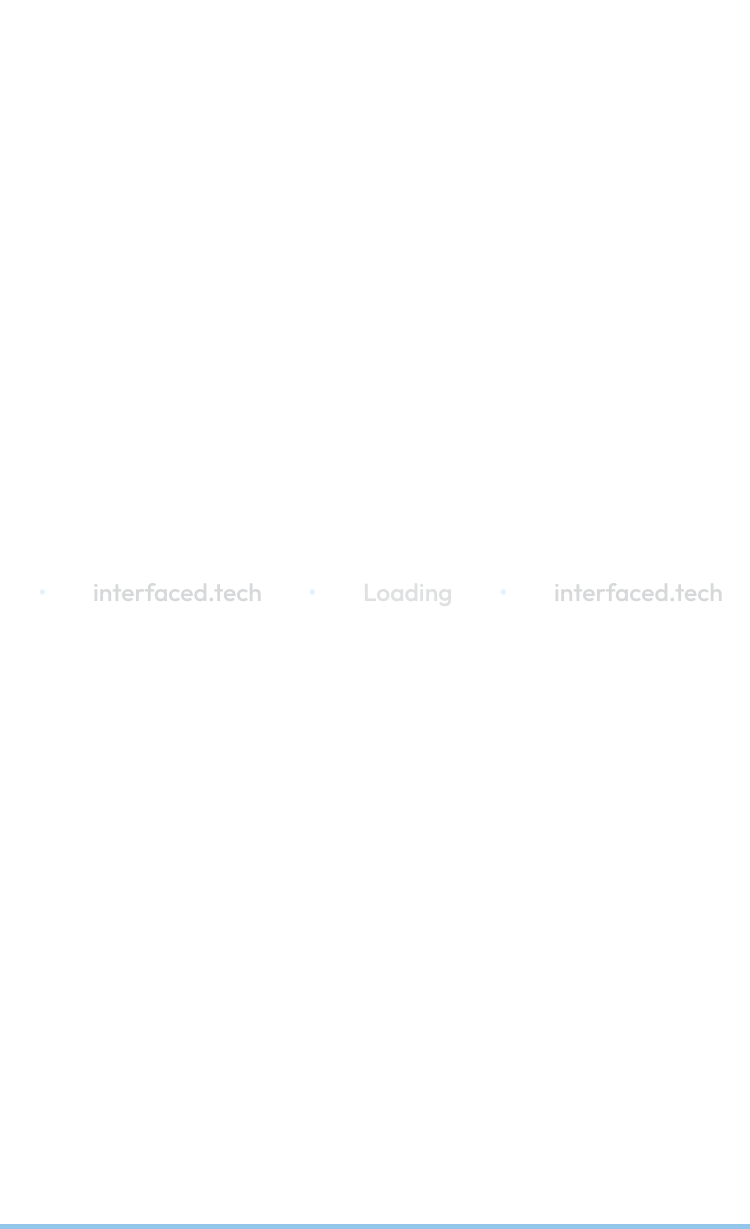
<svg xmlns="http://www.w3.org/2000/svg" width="750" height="1229">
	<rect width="100%" height="100%" fill="#FFFFFF" />
	<text x="38" y="601" font-family="Outfit" font-size="24.75" font-weight="500" fill="#E4F1FA">•</text>
	<text x="93" y="601" font-family="Outfit" font-size="24.75" font-weight="500" fill="#D6D8D9">interfaced.tech</text>
	<text x="308" y="601" font-family="Outfit" font-size="24.75" font-weight="500" fill="#E4F1FA">•</text>
	<text x="363" y="601" font-family="Outfit" font-size="24.75" font-weight="500" fill="#DEE0E1">Loading</text>
	<text x="499" y="601" font-family="Outfit" font-size="24.75" font-weight="500" fill="#E4F1FA">•</text>
	<text x="554" y="601" font-family="Outfit" font-size="24.75" font-weight="500" fill="#D6D8D9">interfaced.tech</text>
	<rect x="0" y="1224" width="750" height="5" fill="#93C6EB" />
</svg>
